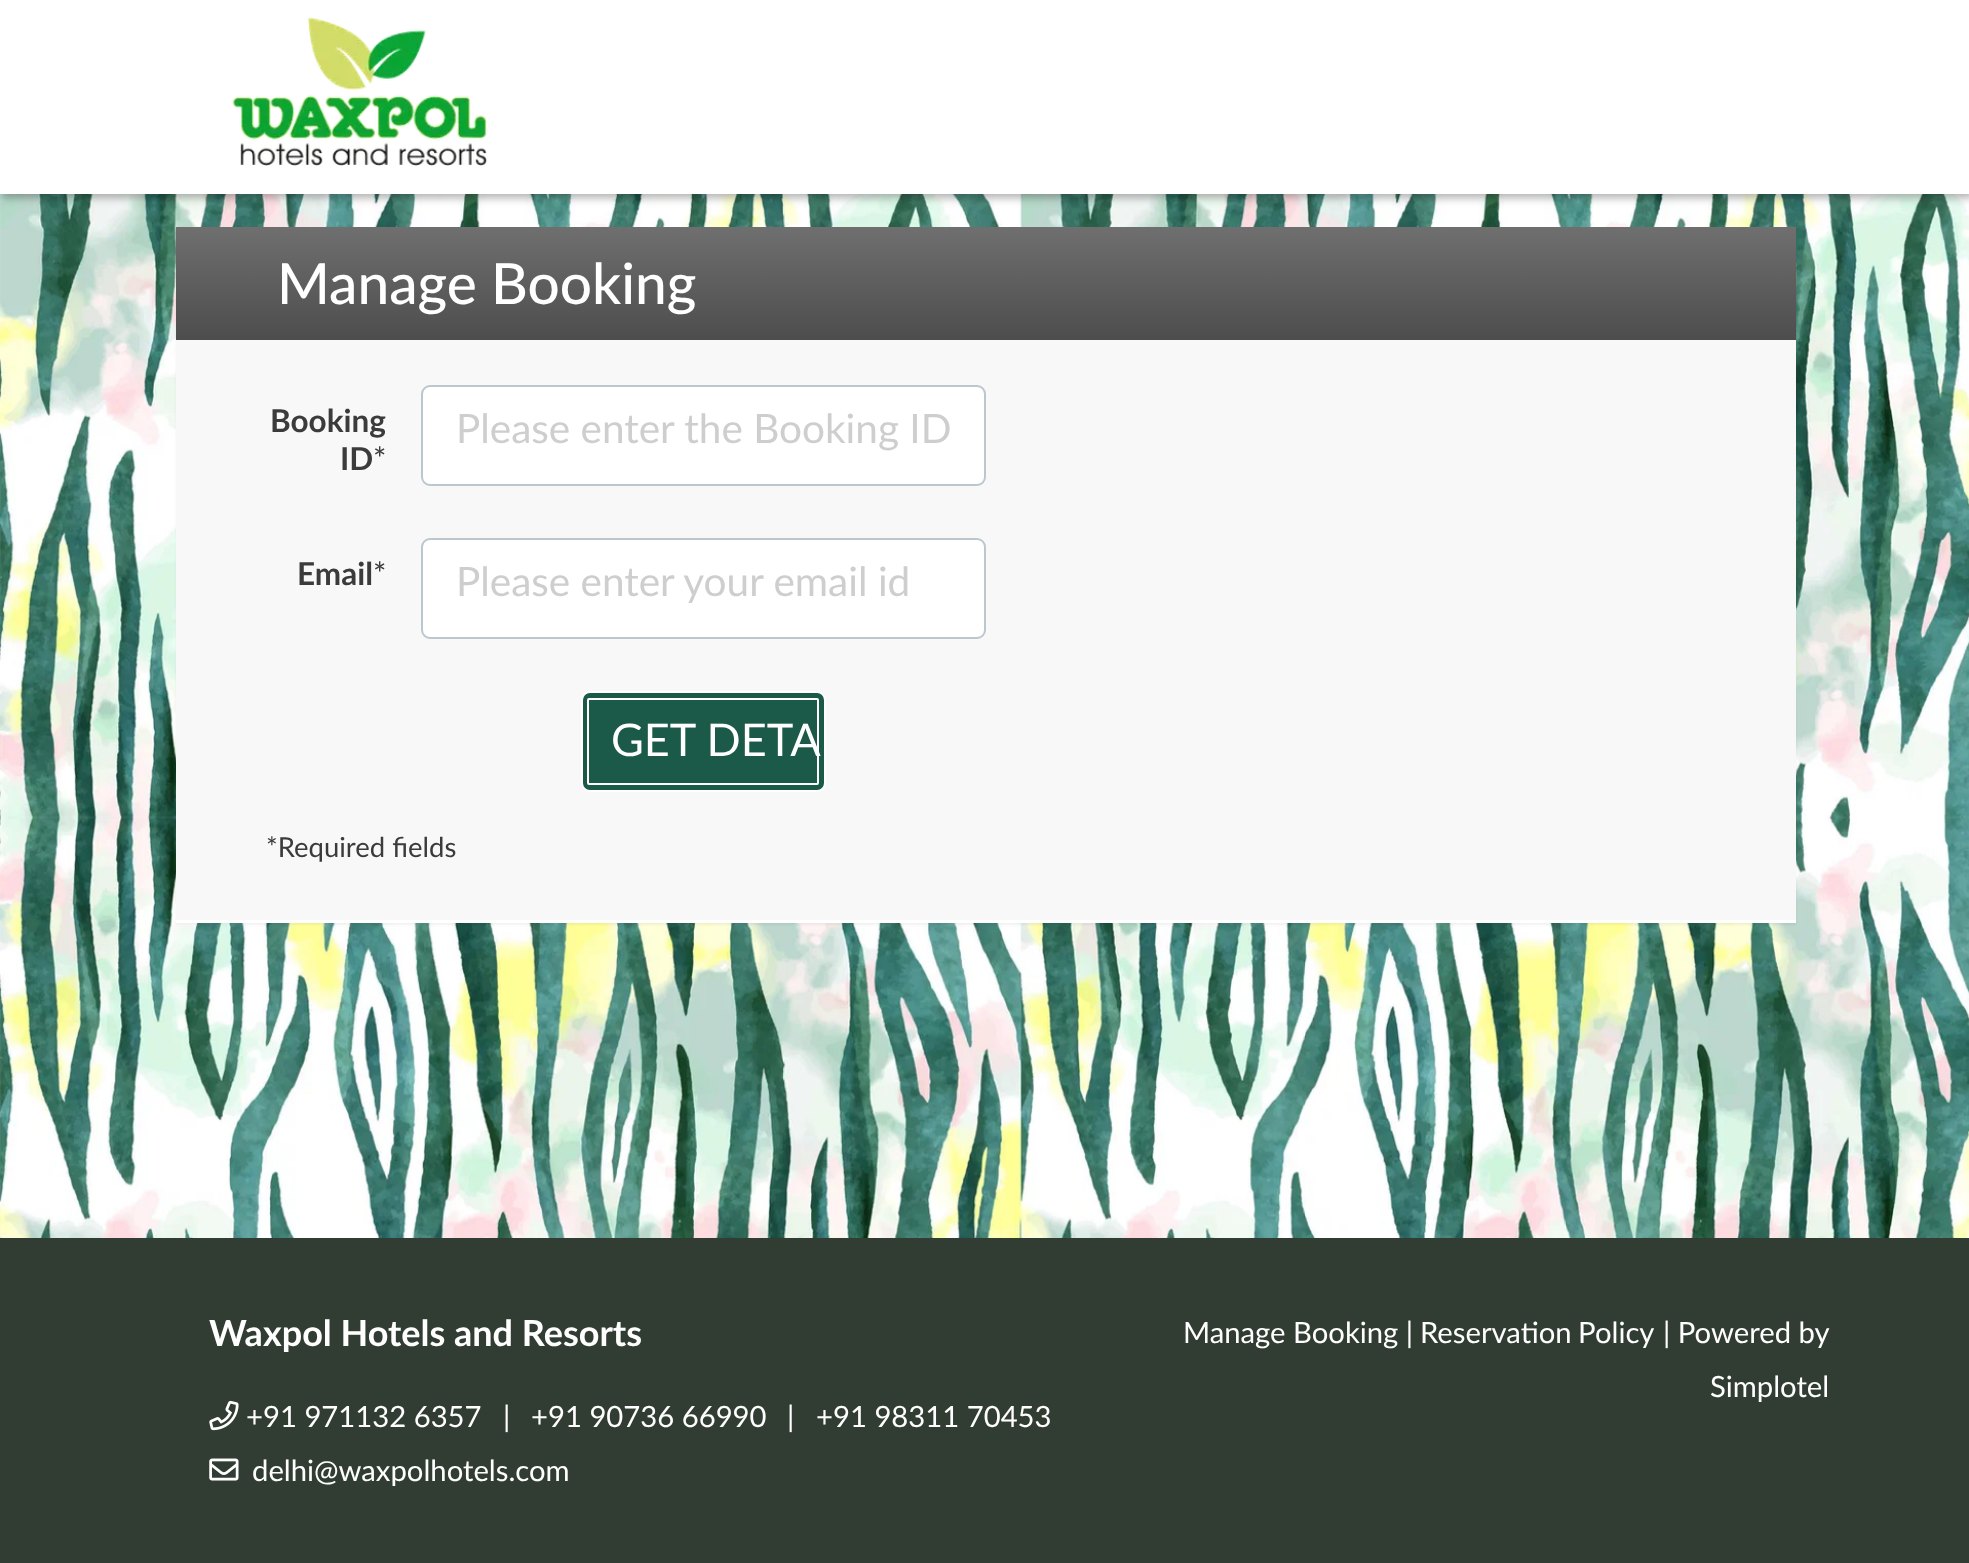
<svg xmlns="http://www.w3.org/2000/svg" width="1969" height="1563">
	<defs>
		<linearGradient id="g1" gradientUnits="userSpaceOnUse" x1="986" y1="340" x2="986" y2="227"><stop offset="0" stop-color="#4D4D4D" /><stop offset="1" stop-color="#6F6F6F" /></linearGradient>
	</defs>
	<rect width="100%" height="100%" fill="#FFFFFF" />
	<image x="0" y="194" width="1969" height="1044" href="assets/img1.png" />
	<rect x="2" y="5" width="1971" height="193" fill="#000000" fill-opacity="0.3" filter="blur(4.5px)" />
	<rect x="0" y="0" width="1969" height="194" fill="#FFFFFF" />
	<image x="232" y="17" width="255" height="149" href="assets/img2.png" />
	<rect x="176" y="230" width="1620" height="695" fill="#000000" fill-opacity="0.05" filter="blur(1px)" />
	<rect x="176" y="920" width="1620" height="3" fill="#FFFFFF" />
	<rect x="176" y="227" width="1620" height="113" fill="url(#g1)" />
	<text x="277" y="304" font-family="Lato" font-size="56.75" font-weight="500" fill="#FFFFFF">Manage Booking</text>
	<rect x="176" y="340" width="1620" height="580" fill="#F8F8F8" />
	<g font-family="Lato" font-size="31.5" font-weight="700" fill="#3B3B3B">
		<text x="270" y="432">Booking</text>
		<text x="340" y="470">ID</text>
	</g>
	<text x="373" y="470" font-family="Lato" font-size="31.5" fill="#3B3B3B">*</text>
	<rect x="422" y="386" width="563" height="99" rx="8" fill="#FFFFFF" stroke="#BBC7CC" stroke-width="2" />
	<text x="456" y="443" font-family="Lato" font-size="40.5" fill="#CECECE">Please enter the Booking ID</text>
	<text x="297" y="585" font-family="Lato" font-size="31.5" font-weight="700" fill="#3B3B3B">Email</text>
	<text x="373" y="585" font-family="Lato" font-size="31.5" fill="#3B3B3B">*</text>
	<rect x="422" y="539" width="563" height="99" rx="8" fill="#FFFFFF" stroke="#BBC7CC" stroke-width="2" />
	<text x="456" y="596" font-family="Lato" font-size="40.5" fill="#CECECE">Please enter your email id</text>
	<rect x="582" y="692" width="243" height="99" rx="8" fill="#1B5948" stroke="#FFFFFF" stroke-width="2" />
	<rect x="588" y="699" width="230" height="85" rx="1" fill="none" stroke="#FFFFFF" stroke-width="2" />
	<text x="611" y="756" font-family="Lato" font-size="45" fill="#FFFFFF">GET DETA</text>
	<text x="266" y="857" font-family="Lato" font-size="27.5" fill="#3B3B3B">*Required fields</text>
	<rect x="0" y="1238" width="1969" height="325" fill="#313C33" />
	<text x="209" y="1346" font-family="Lato" font-size="36" font-weight="700" fill="#FFFFFF">Waxpol Hotels and Resorts</text>
	<image x="209" y="1400" width="30" height="31" href="assets/img3.png" />
	<g font-family="Lato" font-size="29.25" fill="#FFFFFF">
		<text x="246" y="1427">+91 971132 6357</text>
		<text x="503" y="1427">|</text>
		<text x="531" y="1427">+91 90736 66990</text>
		<text x="787" y="1427">|</text>
		<text x="816" y="1427">+91 98311 70453</text>
	</g>
	<image x="209" y="1458" width="30" height="23" href="assets/img4.png" />
	<g font-family="Lato" font-size="29.25" fill="#FFFFFF">
		<text x="252" y="1481">delhi@waxpolhotels.com</text>
		<text x="1183" y="1343">Manage Booking |</text>
		<text x="1420" y="1343" word-spacing="-1">Reservation Policy</text>
		<text x="1663" y="1343">| Powered by</text>
		<text x="1710" y="1397">Simplotel</text>
	</g>
</svg>
